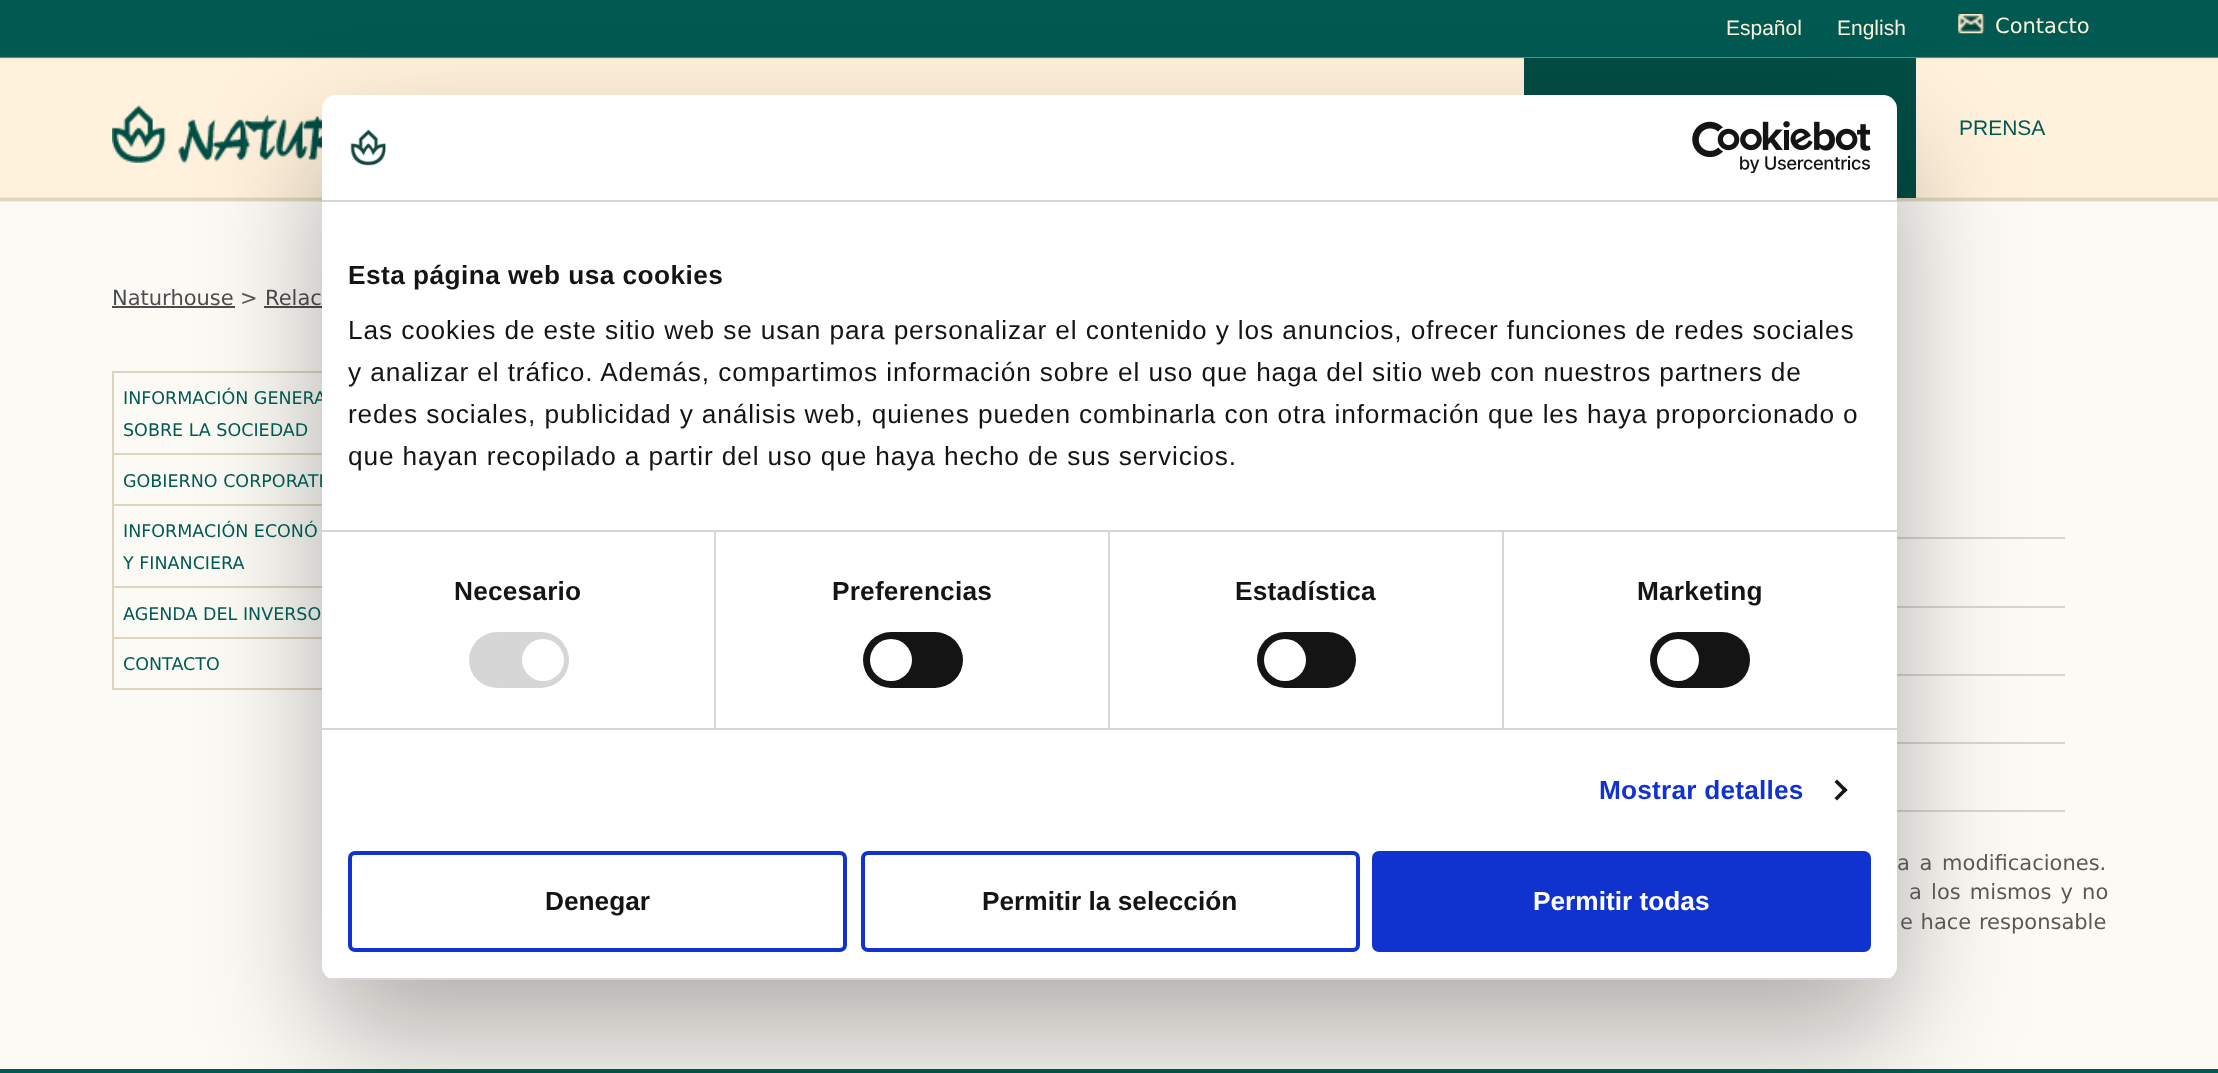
<svg xmlns="http://www.w3.org/2000/svg" width="2218" height="1073">
	<defs>
		<clipPath id="clip1"><rect x="322" y="95" width="1575" height="885" rx="14" /></clipPath>
	</defs>
	<rect width="100%" height="100%" fill="#FCFAF5" />
	<image x="0" y="0" width="2218" height="202" href="assets/img1.png" />
	<g font-family="Liberation Sans" font-size="21" fill="#FBF1DB">
		<text x="1726" y="35">Español</text>
		<text x="1837" y="35">English</text>
	</g>
	<rect x="1958" y="14" width="27" height="19" fill="#00443E" />
	<image x="1958" y="14" width="27" height="20" href="assets/img2.png" />
	<text x="1995" y="33" font-family="DejaVu Sans" font-size="21" fill="#FBF1DB">Contacto</text>
	<image x="112" y="105" width="210" height="58" href="assets/img3.png" />
	<rect x="1524" y="58" width="392" height="140" fill="#024D44" />
	<text x="1959" y="135" font-family="Liberation Sans" font-size="21" fill="#005A52">PRENSA</text>
	<text x="112" y="305" font-family="DejaVu Sans" font-size="21" fill="#4D4D4D">Naturhouse</text>
	<rect x="112" y="306" width="123" height="2" fill="#4D4D4D" />
	<text x="240" y="305" font-family="DejaVu Sans" font-size="21" fill="#595856">&gt;</text>
	<text x="265" y="305" font-family="DejaVu Sans" font-size="21" fill="#4D4D4D">Relac</text>
	<rect x="264" y="306" width="58" height="2" fill="#4D4D4D" />
	<rect x="113" y="372" width="287" height="317" fill="none" stroke="#DED4BE" stroke-width="2" />
	<rect x="114" y="453" width="208" height="2" fill="#DED4BE" />
	<rect x="114" y="504" width="208" height="2" fill="#DED4BE" />
	<rect x="114" y="586" width="208" height="2" fill="#DED4BE" />
	<rect x="114" y="637" width="208" height="2" fill="#DED4BE" />
	<rect x="1897" y="537" width="168" height="2" fill="#D7D6D1" />
	<rect x="1897" y="606" width="168" height="2" fill="#D7D6D1" />
	<rect x="1897" y="674" width="168" height="2" fill="#D7D6D1" />
	<rect x="1897" y="742" width="168" height="2" fill="#D7D6D1" />
	<rect x="1897" y="810" width="168" height="2" fill="#D7D6D1" />
	<rect x="0" y="1069" width="2218" height="4" fill="#005A51" />
	<rect x="322" y="151" width="1575" height="885" rx="14" fill="#000000" fill-opacity="0.3" filter="blur(59.5px)" />
	<text x="123" y="404" font-family="DejaVu Sans" font-size="17.5" fill="#005A52">INFORMACIÓN GENERA</text>
	<rect x="322" y="95" width="1575" height="885" rx="14" fill="#FFFFFF" />
	<rect x="322" y="200" width="1575" height="2" fill="#D6D6D6" />
	<image x="350" y="129" width="36" height="37" href="assets/img4.png" />
	<image x="1692" y="121" width="179" height="52" href="assets/img5.png" />
	<rect x="322" y="530" width="1575" height="2" fill="#D6D6D6" />
	<text x="348" y="284" font-family="Liberation Sans" font-size="26.25" font-weight="700" letter-spacing="0.45" fill="#141414">Esta página web usa cookies</text>
	<g font-family="Liberation Sans" font-size="26.25" letter-spacing="0.88" fill="#141414">
		<text x="348" y="339">Las cookies de este sitio web se usan para personalizar el contenido y los anuncios, ofrecer funciones de redes sociales</text>
		<text x="348" y="381">y analizar el tráfico. Además, compartimos información sobre el uso que haga del sitio web con nuestros partners de</text>
		<text x="348" y="423">redes sociales, publicidad y análisis web, quienes pueden combinarla con otra información que les haya proporcionado o</text>
		<text x="348" y="465">que hayan recopilado a partir del uso que haya hecho de sus servicios.</text>
	</g>
	<rect x="322" y="728" width="1575" height="2" fill="#D6D6D6" />
	<rect x="714" y="532" width="2" height="196" fill="#D6D6D6" />
	<text x="454" y="600" font-family="Liberation Sans" font-size="26.25" font-weight="700" letter-spacing="0.2" fill="#141414">Necesario</text>
	<rect x="469" y="632" width="100" height="56" rx="28" fill="#D6D6D6" />
	<circle cx="543" cy="660" r="21" fill="#FFFFFF" />
	<rect x="1108" y="532" width="2" height="196" fill="#D6D6D6" />
	<text x="832" y="600" font-family="Liberation Sans" font-size="26.25" font-weight="700" letter-spacing="0.2" fill="#141414">Preferencias</text>
	<rect x="863" y="632" width="100" height="56" rx="28" fill="#141414" />
	<circle cx="891" cy="660" r="21" fill="#FFFFFF" />
	<rect x="1502" y="532" width="2" height="196" fill="#D6D6D6" />
	<text x="1235" y="600" font-family="Liberation Sans" font-size="26.25" font-weight="700" letter-spacing="0.2" fill="#141414">Estadística</text>
	<rect x="1257" y="632" width="99" height="56" rx="28" fill="#141414" />
	<circle cx="1285" cy="660" r="21" fill="#FFFFFF" />
	<text x="1637" y="600" font-family="Liberation Sans" font-size="26.25" font-weight="700" letter-spacing="0.2" fill="#141414">Marketing</text>
	<rect x="1650" y="632" width="100" height="56" rx="28" fill="#141414" />
	<circle cx="1678" cy="660" r="21" fill="#FFFFFF" />
	<text x="1599" y="799" font-family="Liberation Sans" font-size="26.25" font-weight="700" letter-spacing="0.2" fill="#1032CF">Mostrar detalles</text>
	<path d="M1837 779.5L1847.5 790L1845 792.5L1834.5 782Z" fill="#141414" />
	<path d="M1845 787.5L1847.5 790L1837 800.5L1834.5 798Z" fill="#141414" />
	<g clip-path="url(#clip1)">
		<rect x="322" y="978" width="1575" height="2" fill="#D6D6D6" />
	</g>
	<rect x="350" y="853" width="495" height="97" rx="5" fill="none" stroke="#1032CF" stroke-width="4" />
	<text x="545" y="910" font-family="Liberation Sans" font-size="26.25" font-weight="700" fill="#141414">Denegar</text>
	<rect x="863" y="853" width="495" height="97" rx="5" fill="none" stroke="#1032CF" stroke-width="4" />
	<text x="982" y="910" font-family="Liberation Sans" font-size="26.25" font-weight="700" fill="#141414">Permitir la selección</text>
	<rect x="1374" y="853" width="495" height="97" rx="5" fill="#1032CF" stroke="#1032CF" stroke-width="4" />
	<text x="1533" y="910" font-family="Liberation Sans" font-size="26.25" font-weight="700" fill="#FFFFFF">Permitir todas</text>
	<g font-family="DejaVu Sans" font-size="17.5" fill="#005A52">
		<text x="123" y="436">SOBRE LA SOCIEDAD</text>
		<text x="123" y="487">GOBIERNO CORPORATI</text>
		<text x="123" y="537">INFORMACIÓN ECONÓ</text>
		<text x="123" y="569">Y FINANCIERA</text>
		<text x="123" y="620">AGENDA DEL INVERSO</text>
		<text x="123" y="670">CONTACTO</text>
	</g>
	<g font-family="DejaVu Sans" font-size="21" fill="#595856">
		<text x="1897" y="870" word-spacing="3">a a modificaciones.</text>
		<text x="1909" y="899" word-spacing="2.5">a los mismos y no</text>
		<text x="1900" y="929" word-spacing="1">e hace responsable</text>
	</g>
</svg>
